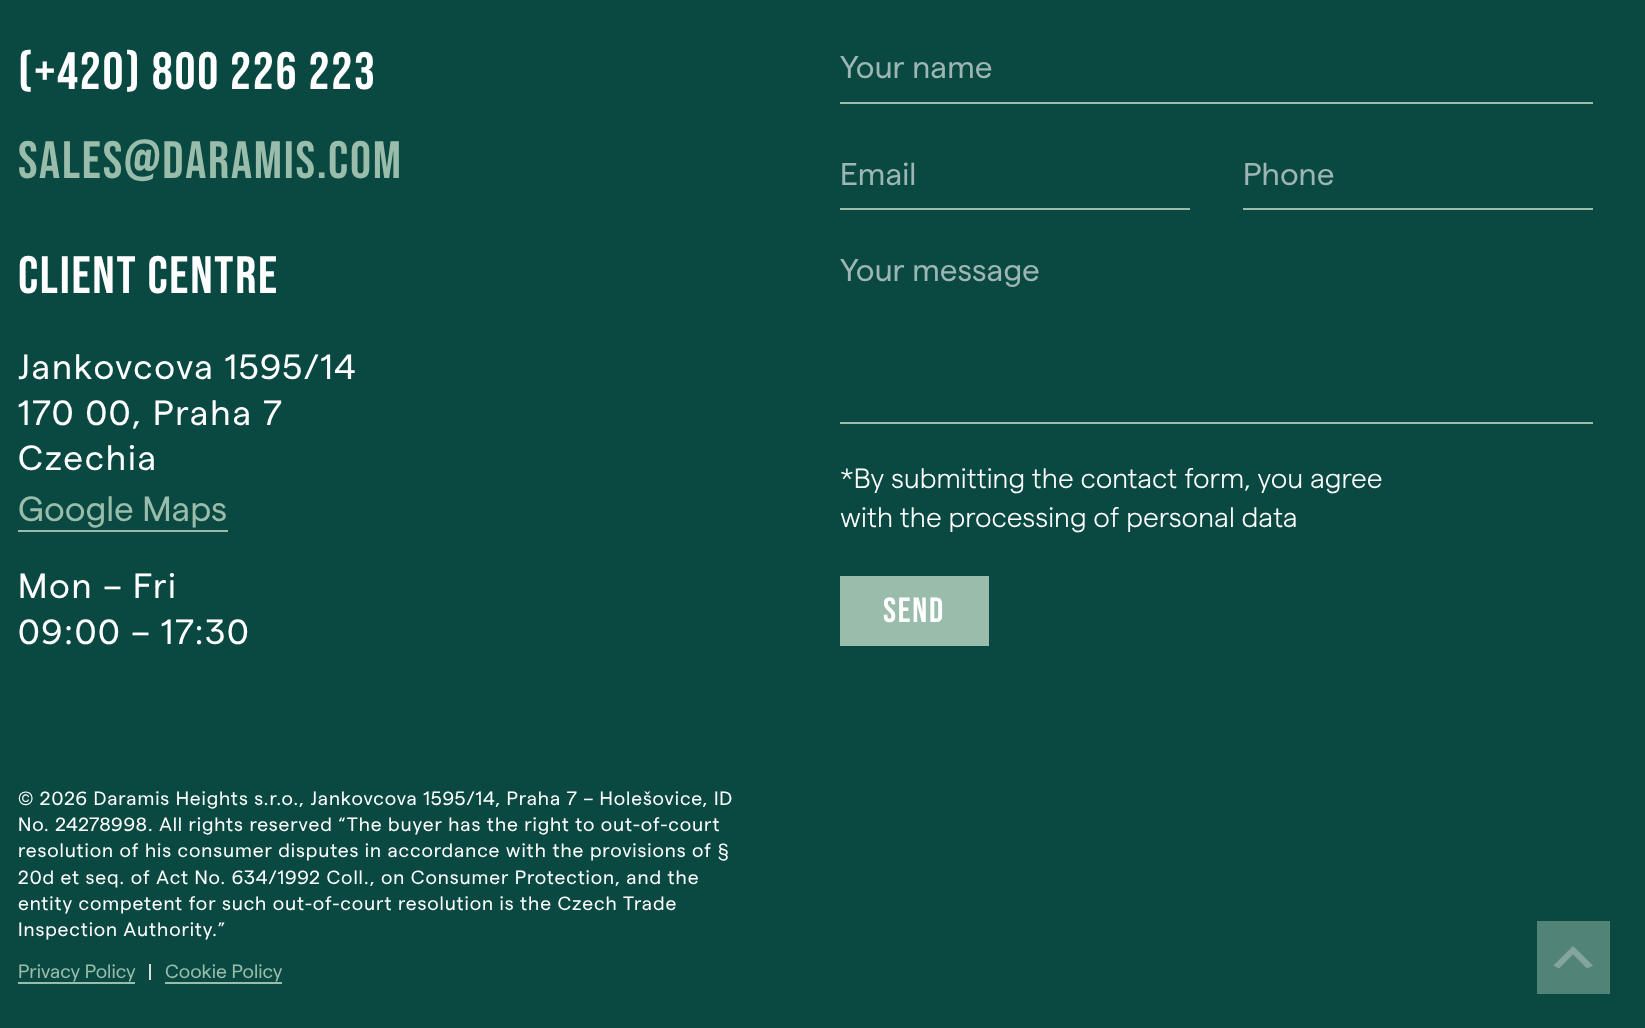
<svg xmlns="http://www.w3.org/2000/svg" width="1645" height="1028">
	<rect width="100%" height="100%" fill="#094941" />
	<text x="18" y="89" font-family="Bebas Neue" font-size="52.5" letter-spacing="1.75" fill="#FFFFFF">(+420) 800 226 223</text>
	<text x="18" y="178" font-family="Bebas Neue" font-size="52.5" letter-spacing="1.75" fill="#99BCAB">sales@daramis.com</text>
	<text x="18" y="293" font-family="Bebas Neue" font-size="52.5" letter-spacing="1.75" fill="#FFFFFF">Client centre</text>
	<g font-family="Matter" font-size="35" letter-spacing="1.75" fill="#FFFFFF">
		<text x="18" y="379">Jankovcova 1595/14</text>
		<text x="18" y="425">170 00, Praha 7</text>
		<text x="18" y="470">Czechia</text>
	</g>
	<text x="18" y="521" font-family="Matter" font-size="35" fill="#99BCAB">Google Maps</text>
	<rect x="18" y="530" width="210" height="2" fill="#99BCAB" />
	<g font-family="Matter" font-size="35" letter-spacing="1.75" fill="#FFFFFF">
		<text x="18" y="598">Mon – Fri</text>
		<text x="18" y="644">09:00 – 17:30</text>
	</g>
	<g font-family="Matter" font-size="19.25" letter-spacing="0.88" fill="#FFFFFF">
		<text x="18" y="805">© 2026 Daramis Heights s.r.o., Jankovcova 1595/14, Praha 7 – Holešovice, ID</text>
		<text x="18" y="831">No. 24278998. All rights reserved “The buyer has the right to out-of-court</text>
		<text x="18" y="857">resolution of his consumer disputes in accordance with the provisions of §</text>
		<text x="18" y="884">20d et seq. of Act No. 634/1992 Coll., on Consumer Protection, and the</text>
		<text x="18" y="910">entity competent for such out-of-court resolution is the Czech Trade</text>
		<text x="18" y="936">Inspection Authority.”</text>
	</g>
	<text x="18" y="978" font-family="Matter" font-size="19.25" fill="#99BCAB">Privacy Policy</text>
	<rect x="18" y="982" width="117" height="2" fill="#99BCAB" />
	<rect x="149" y="964" width="2" height="16" fill="#DDDDDD" />
	<text x="165" y="978" font-family="Matter" font-size="19.25" fill="#99BCAB">Cookie Policy</text>
	<rect x="165" y="982" width="117" height="2" fill="#99BCAB" />
	<rect x="840" y="102" width="753" height="2" fill="#99BCAB" />
	<text x="840" y="78" font-family="Matter" font-size="31.5" fill="#9DB6B3">Your name</text>
	<rect x="840" y="208" width="350" height="2" fill="#99BCAB" />
	<text x="840" y="185" font-family="Matter" font-size="31.5" fill="#9DB6B3">Email</text>
	<rect x="1243" y="208" width="350" height="2" fill="#99BCAB" />
	<text x="1243" y="185" font-family="Matter" font-size="31.5" fill="#9DB6B3">Phone</text>
	<rect x="840" y="422" width="753" height="2" fill="#99BCAB" />
	<text x="840" y="281" font-family="Matter" font-size="31.5" fill="#9DB6B3">Your message</text>
	<g font-family="Matter" font-size="28" font-weight="300" fill="#FFFFFF">
		<text x="840" y="488">*By submitting the contact form, you agree</text>
		<text x="840" y="527">with the processing of personal data</text>
	</g>
	<rect x="840" y="576" width="149" height="70" fill="#99BCAB" />
	<text x="883" y="622" font-family="Bebas Neue" font-size="35" letter-spacing="1.75" fill="#FFFFFF">Send</text>
	<rect x="1537" y="921" width="73" height="73" fill="#518376" />
	<path d="M1587 968.5L1573 954.5L1559 968.5L1553.5 965.5L1573 946L1593 965.5Z" fill="#84A4A0" />
</svg>
